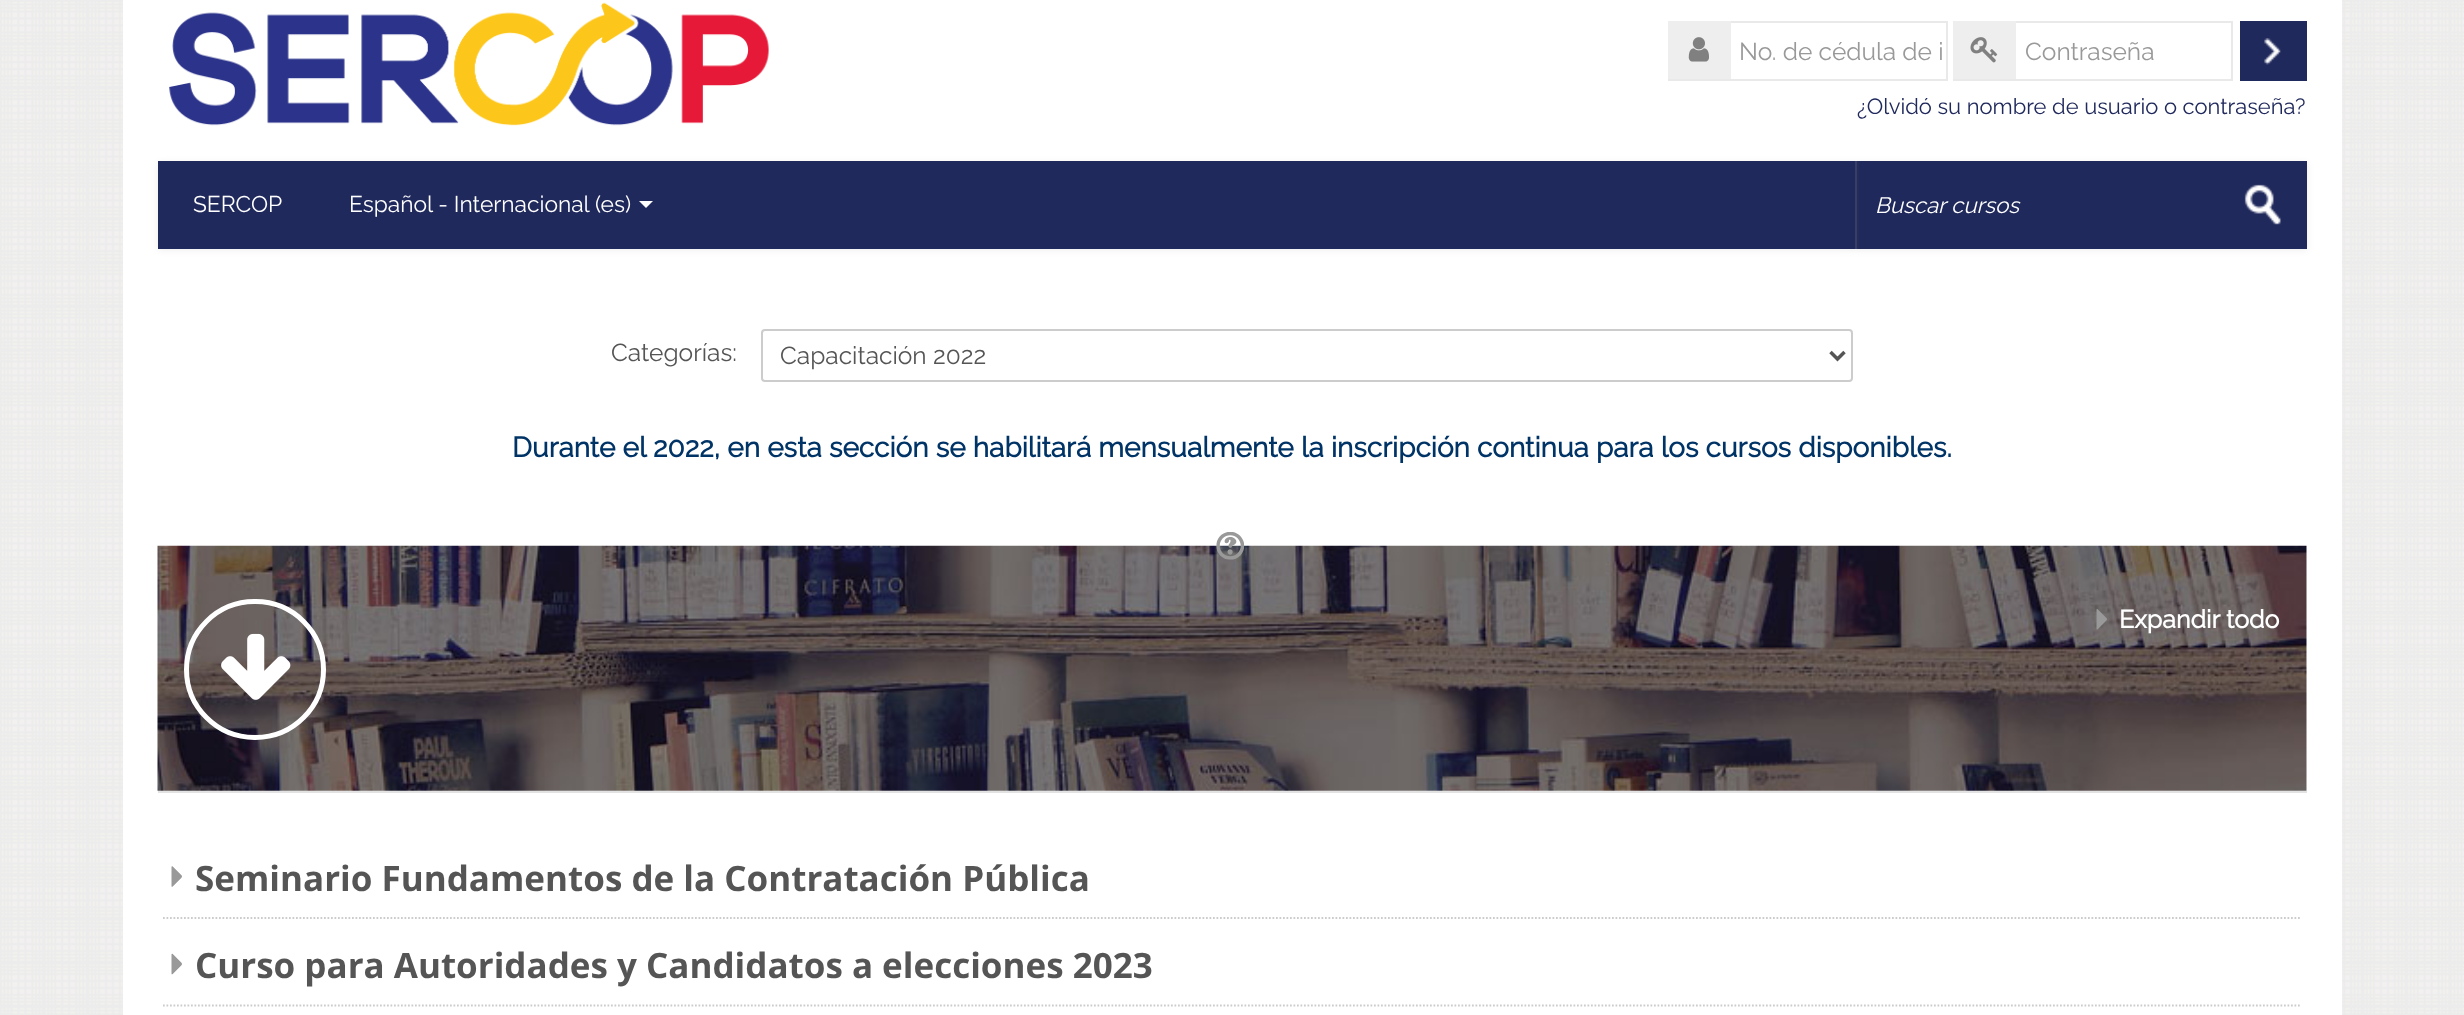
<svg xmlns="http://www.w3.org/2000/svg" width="2464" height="1015">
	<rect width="100%" height="100%" fill="#FFFFFF" />
	<image x="0" y="0" width="2464" height="1015" href="assets/img1.png" />
	<rect x="123" y="0" width="2219" height="1015" fill="#FFFFFF" />
	<image x="169" y="2" width="600" height="124" href="assets/img2.png" />
	<rect x="1669" y="22" width="278" height="58" fill="none" stroke="#E9E9E9" stroke-width="2" />
	<rect x="1668" y="21" width="63" height="58" fill="#EEEEEE" />
	<image x="1688" y="37" width="21" height="25" href="assets/img3.png" />
	<text x="1739" y="60" font-family="Raleway" font-size="24.5" font-weight="100" fill="#999999">No. de cédula de i</text>
	<rect x="1954" y="22" width="278" height="58" fill="none" stroke="#E9E9E9" stroke-width="2" />
	<rect x="1953" y="21" width="63" height="58" fill="#EEEEEE" />
	<image x="1970" y="37" width="28" height="26" href="assets/img4.png" />
	<text x="2025" y="60" font-family="Raleway" font-size="24.5" font-weight="100" fill="#999999">Contraseña</text>
	<rect x="2240" y="21" width="67" height="60" fill="#20295C" />
	<image x="2264" y="38" width="17" height="27" href="assets/img5.png" />
	<text x="1857" y="114" font-family="Raleway" font-size="21.95" font-weight="100" fill="#20295C">¿Olvidó su nombre de usuario o contraseña?</text>
	<rect x="158" y="163" width="2149" height="87" fill="#000000" fill-opacity="0.07" filter="blur(3.5px)" />
	<rect x="158" y="161" width="2149" height="88" fill="#20295C" />
	<g font-family="Raleway" font-size="22.75" font-weight="100" fill="#FFFFFF">
		<text x="193" y="212">SERCOP</text>
		<text x="349" y="212">Español - Internacional (es)</text>
	</g>
	<path d="M639 201H653L646 208Z" fill="#FFFFFF" />
	<rect x="1857" y="161" width="2" height="88" fill="#252C55" />
	<rect x="1855" y="161" width="2" height="88" fill="#373E67" />
	<text x="1875" y="213" font-family="Raleway" font-size="22.25" font-weight="100" font-style="italic" fill="#FFFFFF">Buscar cursos</text>
	<image x="2244" y="184" width="37" height="41" href="assets/img6.png" />
	<text x="611" y="361" font-family="Raleway" font-size="24.5" font-weight="100" fill="#555555">Categorías:</text>
	<rect x="762" y="330" width="1090" height="51" rx="3" fill="none" stroke="#CCCCCC" stroke-width="2" />
	<path d="M1830.5 352L1837.5 359L1844.5 352" fill="none" stroke="#555555" stroke-width="3.5" />
	<text x="780" y="364" font-family="Raleway" font-size="24.5" font-weight="100" fill="#555555">Capacitación 2022</text>
	<text x="512" y="457" font-family="Raleway" font-size="28" font-weight="700" fill="#003366">Durante el 2022, en esta sección se habilitará mensualmente la inscripción continua para los cursos disponibles.</text>
	<image x="157" y="545" width="2150" height="246" href="assets/img8.png" />
	<image x="1216" y="532" width="28" height="28" href="assets/img7.png" />
	<rect x="158" y="791" width="2149" height="2" fill="#E2E2E2" />
	<rect x="186.5" y="601.5" width="137" height="136" rx="68" fill="none" stroke="#FFFFFF" stroke-width="5" />
	<image x="221" y="633" width="70" height="67" href="assets/img9.png" />
	<image x="2096" y="609" width="11" height="21" href="assets/img10.png" />
	<text x="2119" y="628" font-family="Raleway" font-size="25" font-weight="700" fill="#FFFFFF">Expandir todo</text>
	<image x="171" y="866" width="11" height="21" href="assets/img11.png" />
	<path d="M163 918H2301" fill="none" stroke="#CCCCCC" stroke-width="1.8" stroke-dasharray="1.75 1.75" />
	<text x="195" y="891" font-family="Open Sans" font-size="35" font-weight="700" fill="#555555">Seminario Fundamentos de la Contratación Pública</text>
	<image x="171" y="953" width="11" height="22" href="assets/img12.png" />
	<path d="M163 1005.5H2301" fill="none" stroke="#CCCCCC" stroke-width="1.8" stroke-dasharray="1.75 1.75" />
	<text x="195" y="978" font-family="Open Sans" font-size="35" font-weight="700" fill="#555555">Curso para Autoridades y Candidatos a elecciones 2023</text>
</svg>
